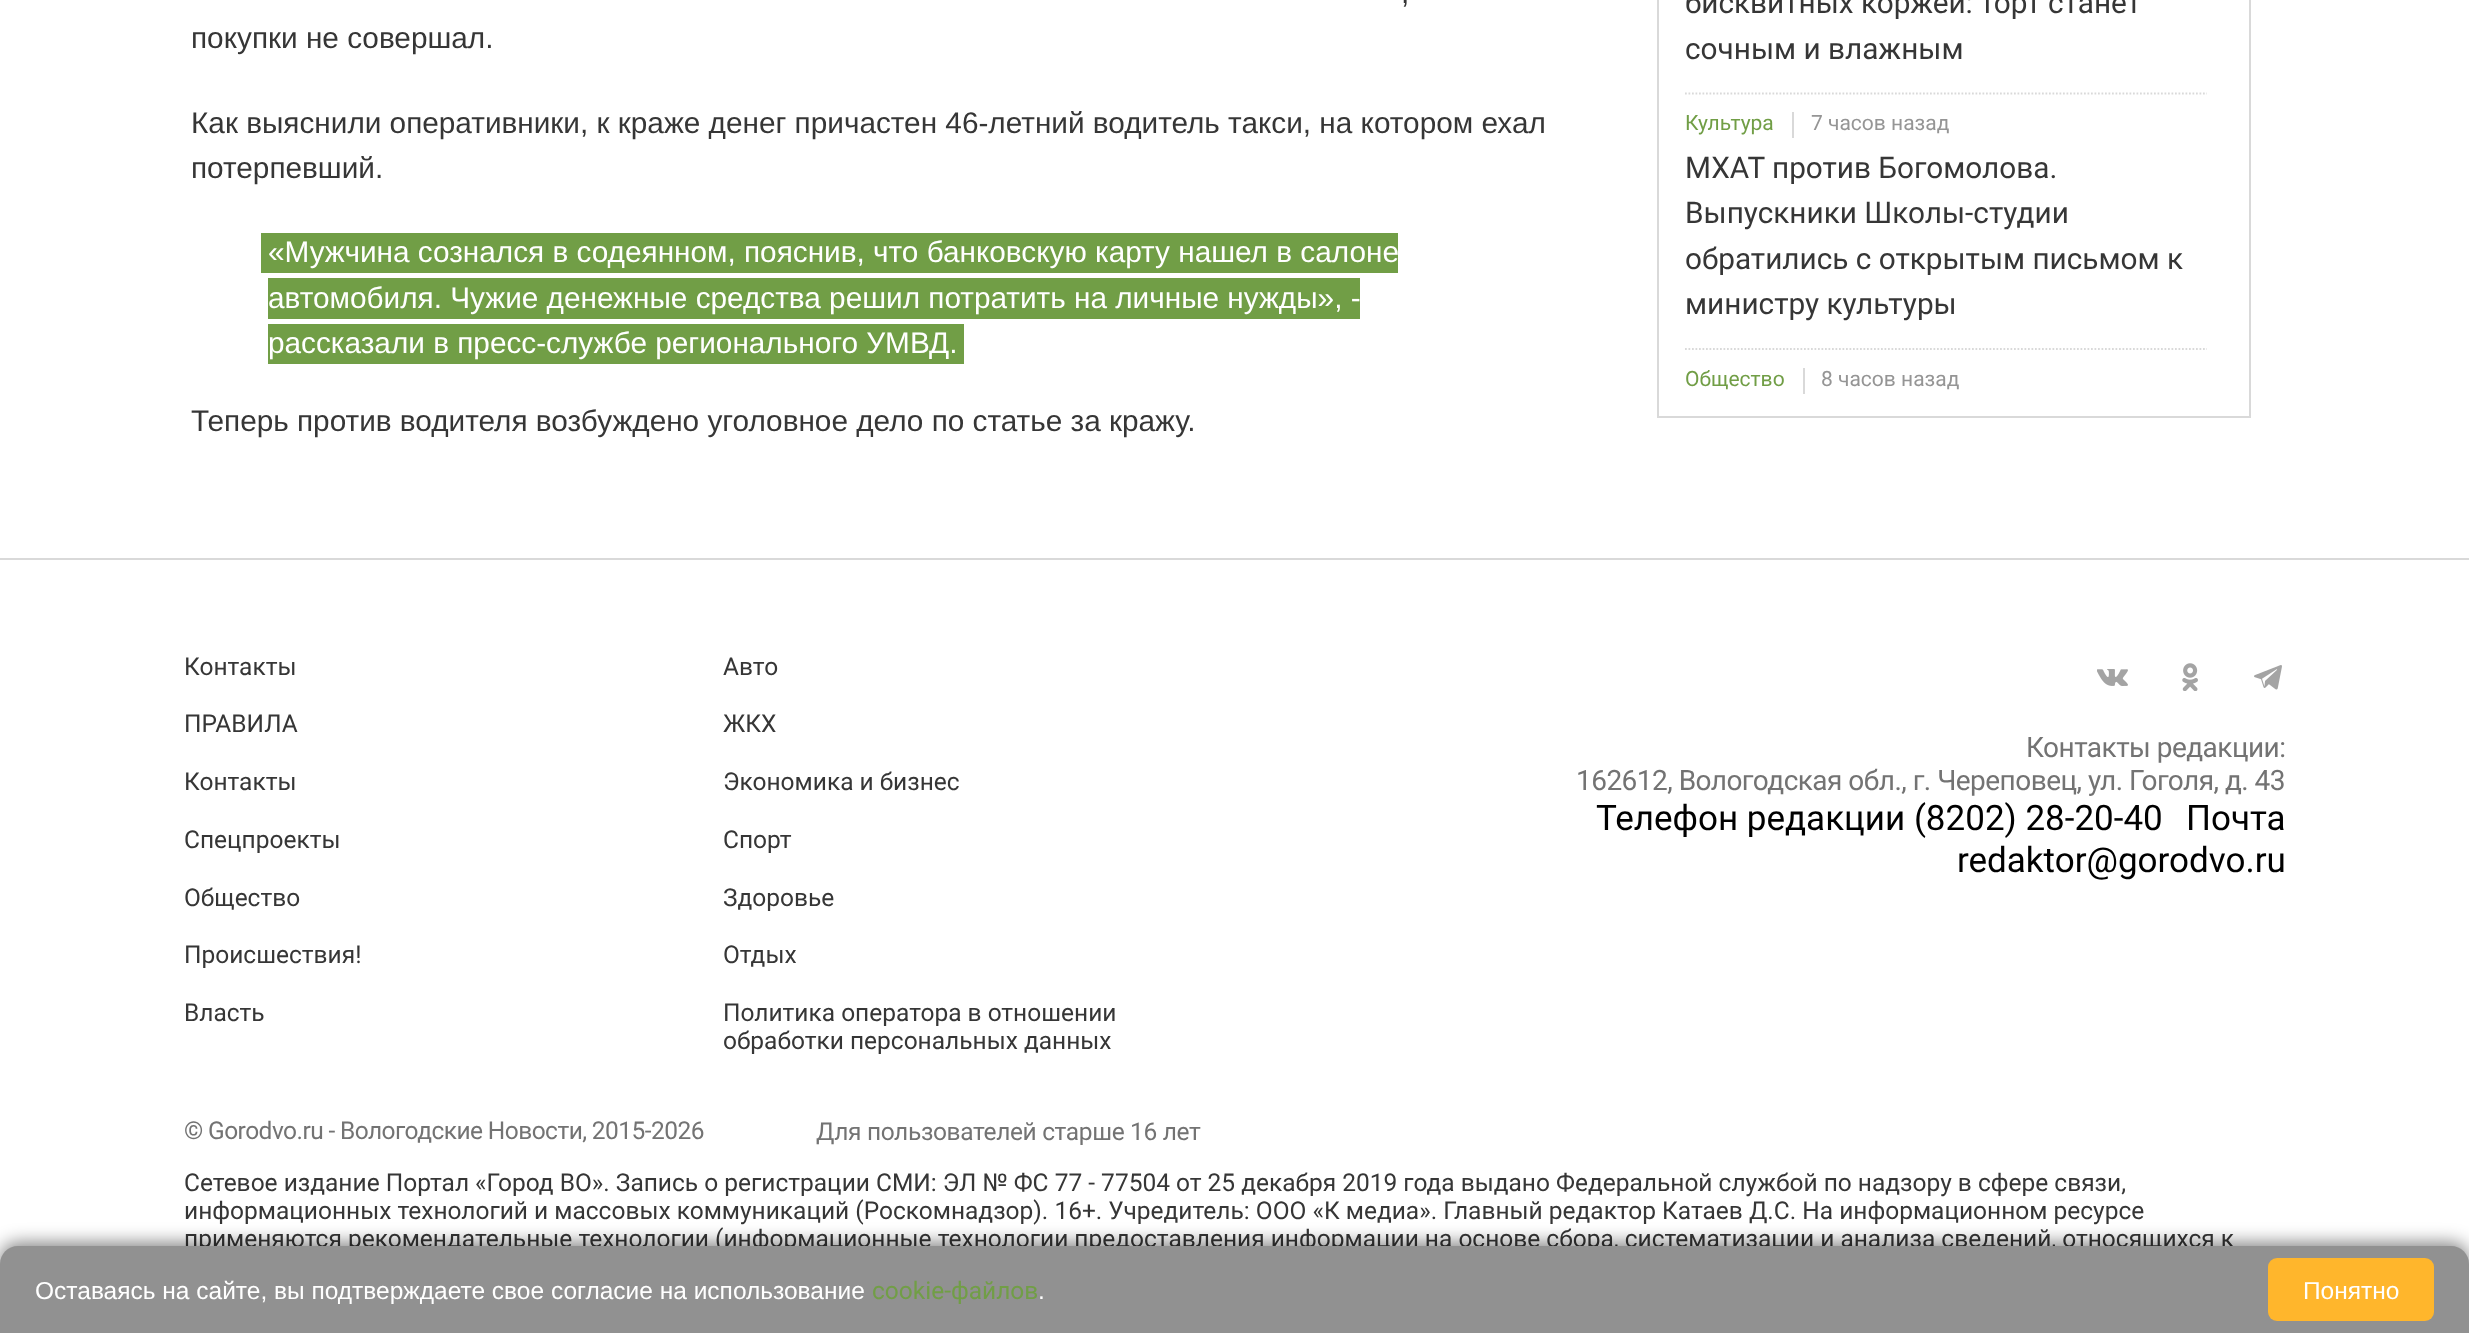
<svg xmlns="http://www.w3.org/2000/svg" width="2469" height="1333">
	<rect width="100%" height="100%" fill="#FFFFFF" />
	<g font-family="Liberation Sans" font-size="29.75" fill="#363636">
		<text x="1401" y="3">,</text>
		<text x="191" y="48">покупки не совершал.</text>
		<text x="191" y="133">Как выяснили оперативники, к краже денег причастен 46-летний водитель такси, на котором ехал</text>
		<text x="191" y="178">потерпевший.</text>
	</g>
	<rect x="261" y="233" width="1137" height="40" fill="#719E46" />
	<text x="268" y="262" font-family="Liberation Sans" font-size="29.75" fill="#FFFFFF">«Мужчина сознался в содеянном, пояснив, что банковскую карту нашел в салоне</text>
	<rect x="268" y="278" width="1092" height="41" fill="#719E46" />
	<text x="268" y="308" font-family="Liberation Sans" font-size="29.75" fill="#FFFFFF">автомобиля. Чужие денежные средства решил потратить на личные нужды», -</text>
	<rect x="268" y="324" width="696" height="40" fill="#719E46" />
	<text x="268" y="353" font-family="Liberation Sans" font-size="29.75" fill="#FFFFFF">рассказали в пресс-службе регионального УМВД.</text>
	<text x="191" y="431" font-family="Liberation Sans" font-size="29.75" fill="#363636">Теперь против водителя возбуждено уголовное дело по статье за кражу.</text>
	<rect x="1658" y="-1" width="592" height="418" fill="none" stroke="#D9D9D9" stroke-width="2" />
	<path d="M1685 93.5H2207" fill="none" stroke="#D9D9D9" stroke-width="1.8" stroke-dasharray="1.75 1.75" />
	<g font-family="Roboto" font-size="29.75" fill="#363636">
		<text x="1685" y="13">бисквитных коржей: торт станет</text>
		<text x="1685" y="59">сочным и влажным</text>
	</g>
	<path d="M1685 349H2207" fill="none" stroke="#D9D9D9" stroke-width="1.8" stroke-dasharray="1.75 1.75" />
	<rect x="1792" y="112" width="2" height="26" fill="#D9D9D9" />
	<text x="1685" y="130" font-family="Roboto" font-size="21" fill="#719E46">Культура</text>
	<text x="1811" y="130" font-family="Roboto" font-size="21" fill="#959595">7 часов назад</text>
	<g font-family="Roboto" font-size="29.75" fill="#363636">
		<text x="1685" y="178">МХАТ против Богомолова.</text>
		<text x="1685" y="223">Выпускники Школы-студии</text>
		<text x="1685" y="269">обратились с открытым письмом к</text>
		<text x="1685" y="314">министру культуры</text>
	</g>
	<rect x="1803" y="368" width="2" height="26" fill="#D9D9D9" />
	<text x="1685" y="386" font-family="Roboto" font-size="21" fill="#719E46">Общество</text>
	<text x="1821" y="386" font-family="Roboto" font-size="21" fill="#959595">8 часов назад</text>
	<rect x="0" y="558" width="2469" height="2" fill="#D9D9D9" />
	<g font-family="Roboto" font-size="24.5" fill="#363636">
		<text x="184" y="675">Контакты</text>
		<text x="184" y="732">ПРАВИЛА</text>
		<text x="184" y="790">Контакты</text>
		<text x="184" y="848">Спецпроекты</text>
		<text x="184" y="906">Общество</text>
		<text x="184" y="963">Происшествия!</text>
		<text x="184" y="1021">Власть</text>
		<text x="723" y="675">Авто</text>
		<text x="723" y="732">ЖКХ</text>
		<text x="723" y="790">Экономика и бизнес</text>
		<text x="723" y="848">Спорт</text>
		<text x="723" y="906">Здоровье</text>
		<text x="723" y="963">Отдых</text>
		<text x="723" y="1021">Политика оператора в отношении</text>
		<text x="723" y="1049">обработки персональных данных</text>
	</g>
	<image x="2097" y="669" width="31" height="17" href="assets/img1.png" />
	<image x="2182" y="663" width="16" height="28" href="assets/img2.png" />
	<image x="2254" y="665" width="28" height="25" href="assets/img3.png" />
	<g font-family="Roboto" font-size="28" letter-spacing="-0.53" fill="#737373">
		<text x="2026" y="757">Контакты редакции:</text>
		<text x="1576" y="790">162612, Вологодская обл., г. Череповец, ул. Гоголя, д. 43</text>
	</g>
	<g font-family="Roboto" font-size="35" fill="#000000">
		<text x="1596" y="830">Телефон редакции (8202) 28-20-40</text>
		<text x="2186" y="830">Почта</text>
		<text x="1957" y="872">redaktor@gorodvo.ru</text>
	</g>
	<text x="184" y="1139" word-spacing="-0.25" font-family="Roboto" font-size="24.5" letter-spacing="-0.53" fill="#737373">© Gorodvo.ru - Вологодские Новости, 2015-2026</text>
	<text x="816" y="1140" font-family="Roboto" font-size="24.5" letter-spacing="-0.35" fill="#737373">Для пользователей старше 16 лет</text>
	<g font-family="Roboto" font-size="24.5" fill="#363636">
		<text x="184" y="1191">Сетевое издание Портал «Город ВО». Запись о регистрации СМИ: ЭЛ № ФС 77 - 77504 от 25 декабря 2019 года выдано Федеральной службой по надзору в сфере связи,</text>
		<text x="184" y="1219">информационных технологий и массовых коммуникаций (Роскомнадзор). 16+. Учредитель: ООО «К медиа». Главный редактор Катаев Д.С. На информационном ресурсе</text>
		<text x="184" y="1247">применяются рекомендательные технологии (информационные технологии предоставления информации на основе сбора, систематизации и анализа сведений, относящихся к</text>
	</g>
	<rect x="0" y="1243" width="2469" height="87" rx="18" fill="#000000" fill-opacity="0.5" filter="blur(9px)" />
	<path d="M18 1246H2451C2461 1246 2469 1254 2469 1264V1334H0V1264C0 1254 8 1246 18 1246Z" fill="#919191" />
	<text x="35" y="1299" font-family="Liberation Sans" font-size="24.5" fill="#FFFFFF">Оставаясь на сайте, вы подтверждаете свое согласие на использование</text>
	<text x="872" y="1299" font-family="Roboto" font-size="24.5" fill="#719E46">cookie-файлов</text>
	<text x="1038" y="1299" font-family="Liberation Sans" font-size="24.5" fill="#FFFFFF">.</text>
	<rect x="2268" y="1258" width="166" height="63" rx="9" fill="#FFB62C" />
	<text x="2303" y="1299" font-family="Liberation Sans" font-size="24.5" fill="#FFFFFF">Понятно</text>
</svg>
